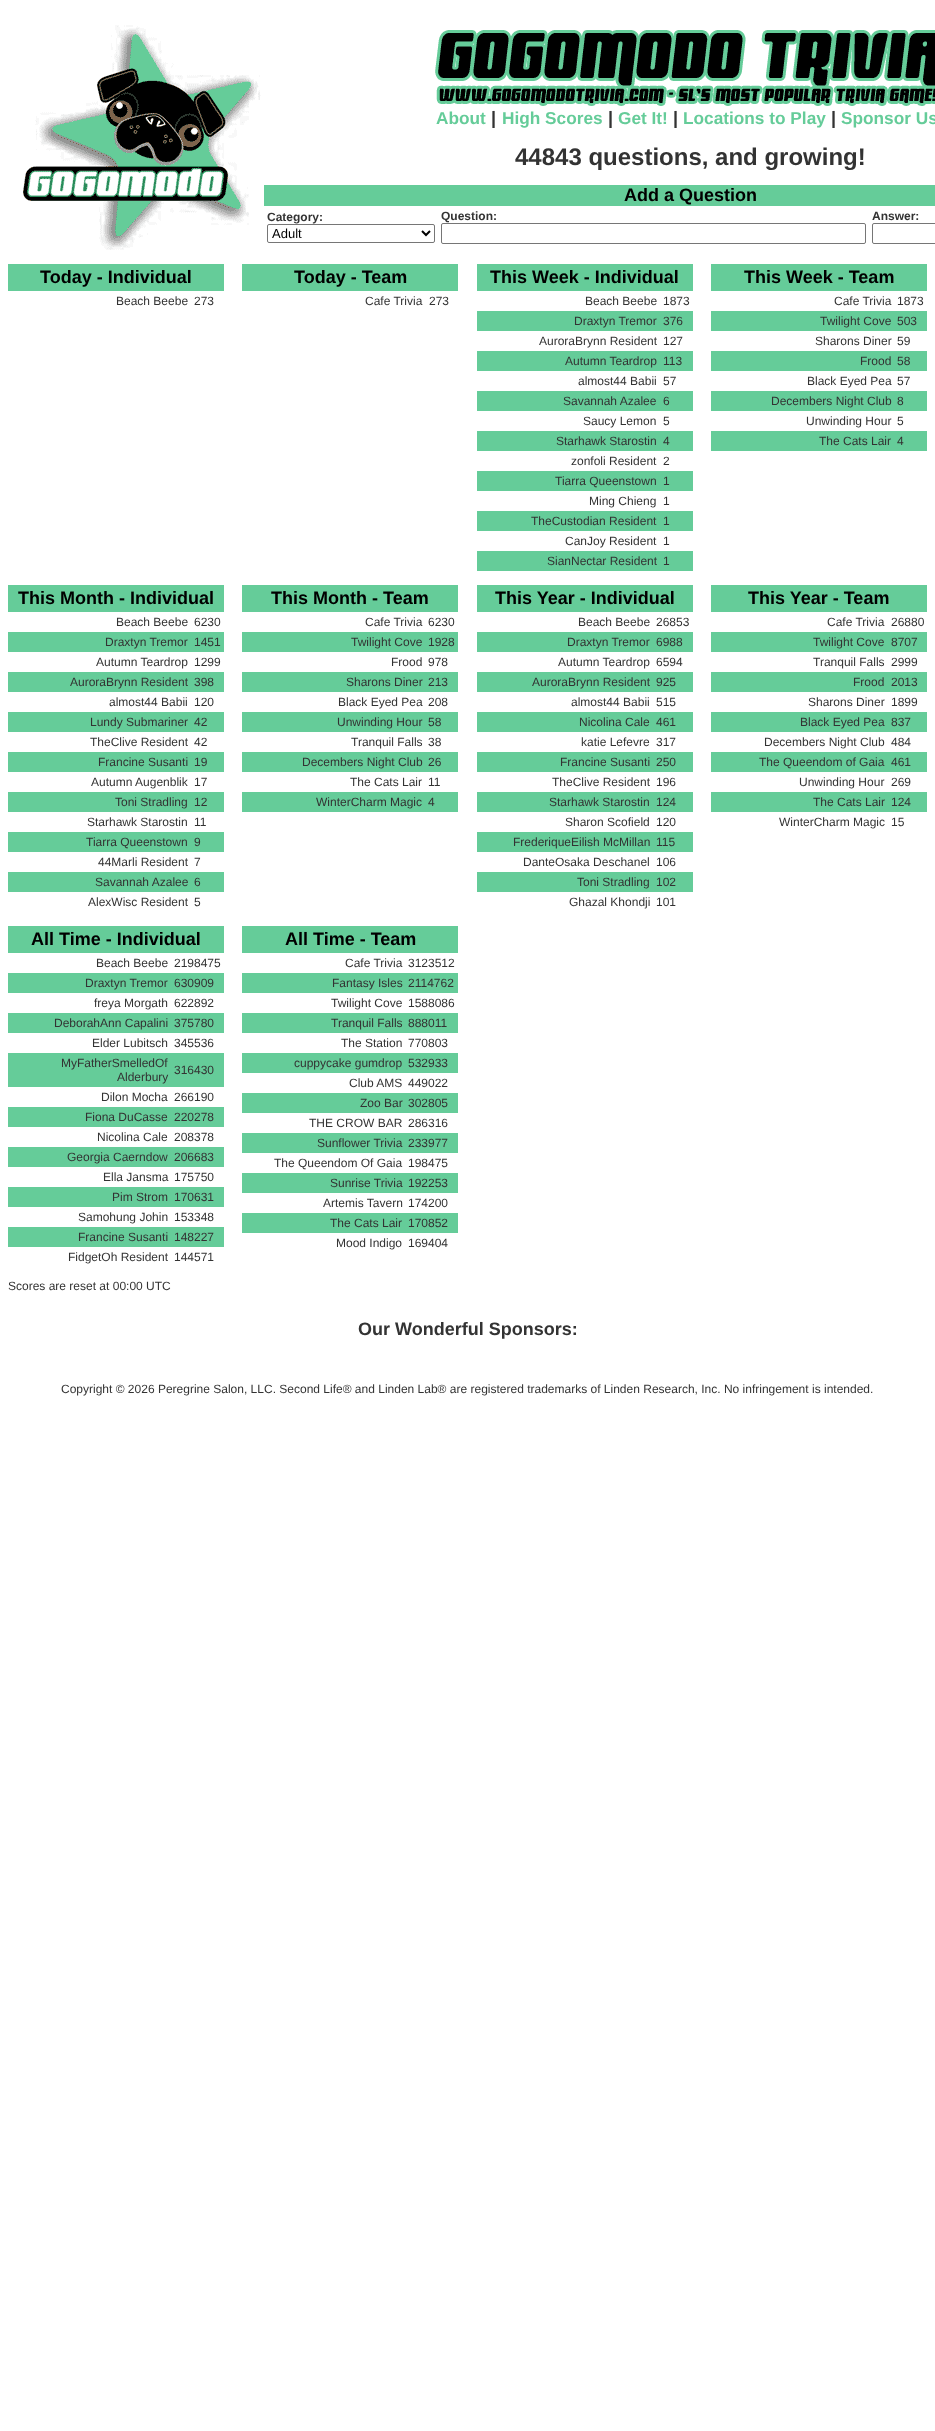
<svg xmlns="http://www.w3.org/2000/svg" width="935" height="2431">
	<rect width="100%" height="100%" fill="#FFFFFF" />
	<image x="23" y="25" width="238" height="225" href="assets/img1.png" />
	<image x="435" y="30" width="500" height="76" href="assets/img2.png" />
	<text x="436" y="124" font-family="Liberation Sans" font-size="17.25" font-weight="700" fill="#65CC99">About</text>
	<text x="491" y="124" font-family="Liberation Sans" font-size="18" font-weight="700" fill="#333333">|</text>
	<text x="502" y="124" font-family="Liberation Sans" font-size="17.25" font-weight="700" fill="#65CC99">High Scores</text>
	<text x="608" y="124" font-family="Liberation Sans" font-size="18" font-weight="700" fill="#333333">|</text>
	<text x="618" y="124" font-family="Liberation Sans" font-size="17.25" font-weight="700" fill="#65CC99">Get It!</text>
	<text x="673" y="124" font-family="Liberation Sans" font-size="18" font-weight="700" fill="#333333">|</text>
	<text x="683" y="124" font-family="Liberation Sans" font-size="17.25" font-weight="700" fill="#65CC99">Locations to Play</text>
	<text x="831" y="124" font-family="Liberation Sans" font-size="18" font-weight="700" fill="#333333">|</text>
	<text x="841" y="124" font-family="Liberation Sans" font-size="17.25" font-weight="700" fill="#65CC99">Sponsor Us</text>
	<text x="515" y="165" font-family="Liberation Sans" font-size="24" font-weight="700" fill="#333333">44843 questions, and growing!</text>
	<rect x="264" y="185" width="671" height="21" fill="#65CC99" />
	<text x="624" y="201" font-family="Liberation Sans" font-size="18" font-weight="700" fill="#000000">Add a Question</text>
	<text x="267" y="221" font-family="Liberation Sans" font-size="12" font-weight="700" fill="#333333">Category:</text>
	<rect x="267.5" y="224.5" width="167" height="18" rx="1.5" fill="none" stroke="#767676" />
	<path d="M422 231L426 235L430 231" fill="none" stroke="#000000" stroke-width="2" />
	<text x="272" y="238" font-family="Liberation Sans" font-size="13" fill="#000000">Adult</text>
	<text x="441" y="220" font-family="Liberation Sans" font-size="12" font-weight="700" fill="#333333">Question:</text>
	<rect x="441.5" y="223.5" width="424" height="20" rx="1.5" fill="none" stroke="#767676" />
	<text x="872" y="220" font-family="Liberation Sans" font-size="12" font-weight="700" fill="#333333">Answer:</text>
	<rect x="872.5" y="223.5" width="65" height="20" rx="1.5" fill="none" stroke="#767676" />
	<rect x="8" y="264" width="216" height="27" fill="#65CC99" />
	<text x="40" y="283" font-family="Liberation Sans" font-size="18" font-weight="700" fill="#000000">Today - Individual</text>
	<g font-family="Liberation Sans" font-size="12" fill="#333333">
		<text x="116" y="305">Beach Beebe</text>
		<text x="194" y="305">273</text>
	</g>
	<rect x="242" y="264" width="216" height="27" fill="#65CC99" />
	<text x="294" y="283" font-family="Liberation Sans" font-size="18" font-weight="700" fill="#000000">Today - Team</text>
	<g font-family="Liberation Sans" font-size="12" fill="#333333">
		<text x="365" y="305">Cafe Trivia</text>
		<text x="429" y="305">273</text>
	</g>
	<rect x="477" y="264" width="216" height="27" fill="#65CC99" />
	<text x="490" y="283" font-family="Liberation Sans" font-size="18" font-weight="700" fill="#000000">This Week - Individual</text>
	<g font-family="Liberation Sans" font-size="12" fill="#333333">
		<text x="585" y="305">Beach Beebe</text>
		<text x="663" y="305">1873</text>
	</g>
	<rect x="477" y="311" width="216" height="20" fill="#65CC99" />
	<g font-family="Liberation Sans" font-size="12" fill="#333333">
		<text x="574" y="325">Draxtyn Tremor</text>
		<text x="663" y="325">376</text>
		<text x="539" y="345">AuroraBrynn Resident</text>
		<text x="663" y="345">127</text>
	</g>
	<rect x="477" y="351" width="216" height="20" fill="#65CC99" />
	<g font-family="Liberation Sans" font-size="12" fill="#333333">
		<text x="565" y="365">Autumn Teardrop</text>
		<text x="663" y="365">113</text>
		<text x="578" y="385">almost44 Babii</text>
		<text x="663" y="385">57</text>
	</g>
	<rect x="477" y="391" width="216" height="20" fill="#65CC99" />
	<g font-family="Liberation Sans" font-size="12" fill="#333333">
		<text x="563" y="405">Savannah Azalee</text>
		<text x="663" y="405">6</text>
		<text x="583" y="425">Saucy Lemon</text>
		<text x="663" y="425">5</text>
	</g>
	<rect x="477" y="431" width="216" height="20" fill="#65CC99" />
	<g font-family="Liberation Sans" font-size="12" fill="#333333">
		<text x="556" y="445">Starhawk Starostin</text>
		<text x="663" y="445">4</text>
		<text x="571" y="465">zonfoli Resident</text>
		<text x="663" y="465">2</text>
	</g>
	<rect x="477" y="471" width="216" height="20" fill="#65CC99" />
	<g font-family="Liberation Sans" font-size="12" fill="#333333">
		<text x="555" y="485">Tiarra Queenstown</text>
		<text x="663" y="485">1</text>
		<text x="589" y="505">Ming Chieng</text>
		<text x="663" y="505">1</text>
	</g>
	<rect x="477" y="511" width="216" height="20" fill="#65CC99" />
	<g font-family="Liberation Sans" font-size="12" fill="#333333">
		<text x="531" y="525">TheCustodian Resident</text>
		<text x="663" y="525">1</text>
		<text x="565" y="545">CanJoy Resident</text>
		<text x="663" y="545">1</text>
	</g>
	<rect x="477" y="551" width="216" height="20" fill="#65CC99" />
	<g font-family="Liberation Sans" font-size="12" fill="#333333">
		<text x="547" y="565">SianNectar Resident</text>
		<text x="663" y="565">1</text>
	</g>
	<rect x="711" y="264" width="216" height="27" fill="#65CC99" />
	<text x="744" y="283" font-family="Liberation Sans" font-size="18" font-weight="700" fill="#000000">This Week - Team</text>
	<g font-family="Liberation Sans" font-size="12" fill="#333333">
		<text x="834" y="305">Cafe Trivia</text>
		<text x="897" y="305">1873</text>
	</g>
	<rect x="711" y="311" width="216" height="20" fill="#65CC99" />
	<g font-family="Liberation Sans" font-size="12" fill="#333333">
		<text x="820" y="325">Twilight Cove</text>
		<text x="897" y="325">503</text>
		<text x="815" y="345">Sharons Diner</text>
		<text x="897" y="345">59</text>
	</g>
	<rect x="711" y="351" width="216" height="20" fill="#65CC99" />
	<g font-family="Liberation Sans" font-size="12" fill="#333333">
		<text x="860" y="365">Frood</text>
		<text x="897" y="365">58</text>
		<text x="807" y="385">Black Eyed Pea</text>
		<text x="897" y="385">57</text>
	</g>
	<rect x="711" y="391" width="216" height="20" fill="#65CC99" />
	<g font-family="Liberation Sans" font-size="12" fill="#333333">
		<text x="771" y="405">Decembers Night Club</text>
		<text x="897" y="405">8</text>
		<text x="806" y="425">Unwinding Hour</text>
		<text x="897" y="425">5</text>
	</g>
	<rect x="711" y="431" width="216" height="20" fill="#65CC99" />
	<g font-family="Liberation Sans" font-size="12" fill="#333333">
		<text x="819" y="445">The Cats Lair</text>
		<text x="897" y="445">4</text>
	</g>
	<rect x="8" y="585" width="216" height="27" fill="#65CC99" />
	<text x="18" y="604" font-family="Liberation Sans" font-size="18" font-weight="700" fill="#000000">This Month - Individual</text>
	<g font-family="Liberation Sans" font-size="12" fill="#333333">
		<text x="116" y="626">Beach Beebe</text>
		<text x="194" y="626">6230</text>
	</g>
	<rect x="8" y="632" width="216" height="20" fill="#65CC99" />
	<g font-family="Liberation Sans" font-size="12" fill="#333333">
		<text x="105" y="646">Draxtyn Tremor</text>
		<text x="194" y="646">1451</text>
		<text x="96" y="666">Autumn Teardrop</text>
		<text x="194" y="666">1299</text>
	</g>
	<rect x="8" y="672" width="216" height="20" fill="#65CC99" />
	<g font-family="Liberation Sans" font-size="12" fill="#333333">
		<text x="70" y="686">AuroraBrynn Resident</text>
		<text x="194" y="686">398</text>
		<text x="109" y="706">almost44 Babii</text>
		<text x="194" y="706">120</text>
	</g>
	<rect x="8" y="712" width="216" height="20" fill="#65CC99" />
	<g font-family="Liberation Sans" font-size="12" fill="#333333">
		<text x="90" y="726">Lundy Submariner</text>
		<text x="194" y="726">42</text>
		<text x="90" y="746">TheClive Resident</text>
		<text x="194" y="746">42</text>
	</g>
	<rect x="8" y="752" width="216" height="20" fill="#65CC99" />
	<g font-family="Liberation Sans" font-size="12" fill="#333333">
		<text x="98" y="766">Francine Susanti</text>
		<text x="194" y="766">19</text>
		<text x="91" y="786">Autumn Augenblik</text>
		<text x="194" y="786">17</text>
	</g>
	<rect x="8" y="792" width="216" height="20" fill="#65CC99" />
	<g font-family="Liberation Sans" font-size="12" fill="#333333">
		<text x="115" y="806">Toni Stradling</text>
		<text x="194" y="806">12</text>
		<text x="87" y="826">Starhawk Starostin</text>
		<text x="194" y="826">11</text>
	</g>
	<rect x="8" y="832" width="216" height="20" fill="#65CC99" />
	<g font-family="Liberation Sans" font-size="12" fill="#333333">
		<text x="86" y="846">Tiarra Queenstown</text>
		<text x="194" y="846">9</text>
		<text x="98" y="866">44Marli Resident</text>
		<text x="194" y="866">7</text>
	</g>
	<rect x="8" y="872" width="216" height="20" fill="#65CC99" />
	<g font-family="Liberation Sans" font-size="12" fill="#333333">
		<text x="95" y="886">Savannah Azalee</text>
		<text x="194" y="886">6</text>
		<text x="88" y="906">AlexWisc Resident</text>
		<text x="194" y="906">5</text>
	</g>
	<rect x="242" y="585" width="216" height="27" fill="#65CC99" />
	<text x="271" y="604" font-family="Liberation Sans" font-size="18" font-weight="700" fill="#000000">This Month - Team</text>
	<g font-family="Liberation Sans" font-size="12" fill="#333333">
		<text x="365" y="626">Cafe Trivia</text>
		<text x="428" y="626">6230</text>
	</g>
	<rect x="242" y="632" width="216" height="20" fill="#65CC99" />
	<g font-family="Liberation Sans" font-size="12" fill="#333333">
		<text x="351" y="646">Twilight Cove</text>
		<text x="428" y="646">1928</text>
		<text x="391" y="666">Frood</text>
		<text x="428" y="666">978</text>
	</g>
	<rect x="242" y="672" width="216" height="20" fill="#65CC99" />
	<g font-family="Liberation Sans" font-size="12" fill="#333333">
		<text x="346" y="686">Sharons Diner</text>
		<text x="428" y="686">213</text>
		<text x="338" y="706">Black Eyed Pea</text>
		<text x="428" y="706">208</text>
	</g>
	<rect x="242" y="712" width="216" height="20" fill="#65CC99" />
	<g font-family="Liberation Sans" font-size="12" fill="#333333">
		<text x="337" y="726">Unwinding Hour</text>
		<text x="428" y="726">58</text>
		<text x="351" y="746">Tranquil Falls</text>
		<text x="428" y="746">38</text>
	</g>
	<rect x="242" y="752" width="216" height="20" fill="#65CC99" />
	<g font-family="Liberation Sans" font-size="12" fill="#333333">
		<text x="302" y="766">Decembers Night Club</text>
		<text x="428" y="766">26</text>
		<text x="350" y="786">The Cats Lair</text>
		<text x="428" y="786">11</text>
	</g>
	<rect x="242" y="792" width="216" height="20" fill="#65CC99" />
	<g font-family="Liberation Sans" font-size="12" fill="#333333">
		<text x="316" y="806">WinterCharm Magic</text>
		<text x="428" y="806">4</text>
	</g>
	<rect x="477" y="585" width="216" height="27" fill="#65CC99" />
	<text x="495" y="604" font-family="Liberation Sans" font-size="18" font-weight="700" fill="#000000">This Year - Individual</text>
	<g font-family="Liberation Sans" font-size="12" fill="#333333">
		<text x="578" y="626">Beach Beebe</text>
		<text x="656" y="626">26853</text>
	</g>
	<rect x="477" y="632" width="216" height="20" fill="#65CC99" />
	<g font-family="Liberation Sans" font-size="12" fill="#333333">
		<text x="567" y="646">Draxtyn Tremor</text>
		<text x="656" y="646">6988</text>
		<text x="558" y="666">Autumn Teardrop</text>
		<text x="656" y="666">6594</text>
	</g>
	<rect x="477" y="672" width="216" height="20" fill="#65CC99" />
	<g font-family="Liberation Sans" font-size="12" fill="#333333">
		<text x="532" y="686">AuroraBrynn Resident</text>
		<text x="656" y="686">925</text>
		<text x="571" y="706">almost44 Babii</text>
		<text x="656" y="706">515</text>
	</g>
	<rect x="477" y="712" width="216" height="20" fill="#65CC99" />
	<g font-family="Liberation Sans" font-size="12" fill="#333333">
		<text x="579" y="726">Nicolina Cale</text>
		<text x="656" y="726">461</text>
		<text x="581" y="746">katie Lefevre</text>
		<text x="656" y="746">317</text>
	</g>
	<rect x="477" y="752" width="216" height="20" fill="#65CC99" />
	<g font-family="Liberation Sans" font-size="12" fill="#333333">
		<text x="560" y="766">Francine Susanti</text>
		<text x="656" y="766">250</text>
		<text x="552" y="786">TheClive Resident</text>
		<text x="656" y="786">196</text>
	</g>
	<rect x="477" y="792" width="216" height="20" fill="#65CC99" />
	<g font-family="Liberation Sans" font-size="12" fill="#333333">
		<text x="549" y="806">Starhawk Starostin</text>
		<text x="656" y="806">124</text>
		<text x="565" y="826">Sharon Scofield</text>
		<text x="656" y="826">120</text>
	</g>
	<rect x="477" y="832" width="216" height="20" fill="#65CC99" />
	<g font-family="Liberation Sans" font-size="12" fill="#333333">
		<text x="513" y="846">FrederiqueEilish McMillan</text>
		<text x="656" y="846">115</text>
		<text x="523" y="866">DanteOsaka Deschanel</text>
		<text x="656" y="866">106</text>
	</g>
	<rect x="477" y="872" width="216" height="20" fill="#65CC99" />
	<g font-family="Liberation Sans" font-size="12" fill="#333333">
		<text x="577" y="886">Toni Stradling</text>
		<text x="656" y="886">102</text>
		<text x="569" y="906">Ghazal Khondji</text>
		<text x="656" y="906">101</text>
	</g>
	<rect x="711" y="585" width="216" height="27" fill="#65CC99" />
	<text x="748" y="604" font-family="Liberation Sans" font-size="18" font-weight="700" fill="#000000">This Year - Team</text>
	<g font-family="Liberation Sans" font-size="12" fill="#333333">
		<text x="827" y="626">Cafe Trivia</text>
		<text x="891" y="626">26880</text>
	</g>
	<rect x="711" y="632" width="216" height="20" fill="#65CC99" />
	<g font-family="Liberation Sans" font-size="12" fill="#333333">
		<text x="813" y="646">Twilight Cove</text>
		<text x="891" y="646">8707</text>
		<text x="813" y="666">Tranquil Falls</text>
		<text x="891" y="666">2999</text>
	</g>
	<rect x="711" y="672" width="216" height="20" fill="#65CC99" />
	<g font-family="Liberation Sans" font-size="12" fill="#333333">
		<text x="853" y="686">Frood</text>
		<text x="891" y="686">2013</text>
		<text x="808" y="706">Sharons Diner</text>
		<text x="891" y="706">1899</text>
	</g>
	<rect x="711" y="712" width="216" height="20" fill="#65CC99" />
	<g font-family="Liberation Sans" font-size="12" fill="#333333">
		<text x="800" y="726">Black Eyed Pea</text>
		<text x="891" y="726">837</text>
		<text x="764" y="746">Decembers Night Club</text>
		<text x="891" y="746">484</text>
	</g>
	<rect x="711" y="752" width="216" height="20" fill="#65CC99" />
	<g font-family="Liberation Sans" font-size="12" fill="#333333">
		<text x="759" y="766">The Queendom of Gaia</text>
		<text x="891" y="766">461</text>
		<text x="799" y="786">Unwinding Hour</text>
		<text x="891" y="786">269</text>
	</g>
	<rect x="711" y="792" width="216" height="20" fill="#65CC99" />
	<g font-family="Liberation Sans" font-size="12" fill="#333333">
		<text x="813" y="806">The Cats Lair</text>
		<text x="891" y="806">124</text>
		<text x="779" y="826">WinterCharm Magic</text>
		<text x="891" y="826">15</text>
	</g>
	<rect x="8" y="926" width="216" height="27" fill="#65CC99" />
	<text x="31" y="945" font-family="Liberation Sans" font-size="18" font-weight="700" fill="#000000">All Time - Individual</text>
	<g font-family="Liberation Sans" font-size="12" fill="#333333">
		<text x="96" y="967">Beach Beebe</text>
		<text x="174" y="967">2198475</text>
	</g>
	<rect x="8" y="973" width="216" height="20" fill="#65CC99" />
	<g font-family="Liberation Sans" font-size="12" fill="#333333">
		<text x="85" y="987">Draxtyn Tremor</text>
		<text x="174" y="987">630909</text>
		<text x="94" y="1007">freya Morgath</text>
		<text x="174" y="1007">622892</text>
	</g>
	<rect x="8" y="1013" width="216" height="20" fill="#65CC99" />
	<g font-family="Liberation Sans" font-size="12" fill="#333333">
		<text x="54" y="1027">DeborahAnn Capalini</text>
		<text x="174" y="1027">375780</text>
		<text x="92" y="1047">Elder Lubitsch</text>
		<text x="174" y="1047">345536</text>
	</g>
	<rect x="8" y="1053" width="216" height="34" fill="#65CC99" />
	<g font-family="Liberation Sans" font-size="12" fill="#333333">
		<text x="61" y="1067">MyFatherSmelledOf</text>
		<text x="117" y="1081">Alderbury</text>
		<text x="174" y="1074">316430</text>
		<text x="101" y="1101">Dilon Mocha</text>
		<text x="174" y="1101">266190</text>
	</g>
	<rect x="8" y="1107" width="216" height="20" fill="#65CC99" />
	<g font-family="Liberation Sans" font-size="12" fill="#333333">
		<text x="85" y="1121">Fiona DuCasse</text>
		<text x="174" y="1121">220278</text>
		<text x="97" y="1141">Nicolina Cale</text>
		<text x="174" y="1141">208378</text>
	</g>
	<rect x="8" y="1147" width="216" height="20" fill="#65CC99" />
	<g font-family="Liberation Sans" font-size="12" fill="#333333">
		<text x="67" y="1161">Georgia Caerndow</text>
		<text x="174" y="1161">206683</text>
		<text x="103" y="1181">Ella Jansma</text>
		<text x="174" y="1181">175750</text>
	</g>
	<rect x="8" y="1187" width="216" height="20" fill="#65CC99" />
	<g font-family="Liberation Sans" font-size="12" fill="#333333">
		<text x="112" y="1201">Pim Strom</text>
		<text x="174" y="1201">170631</text>
		<text x="78" y="1221">Samohung Johin</text>
		<text x="174" y="1221">153348</text>
	</g>
	<rect x="8" y="1227" width="216" height="20" fill="#65CC99" />
	<g font-family="Liberation Sans" font-size="12" fill="#333333">
		<text x="78" y="1241">Francine Susanti</text>
		<text x="174" y="1241">148227</text>
		<text x="68" y="1261">FidgetOh Resident</text>
		<text x="174" y="1261">144571</text>
	</g>
	<rect x="242" y="926" width="216" height="27" fill="#65CC99" />
	<text x="285" y="945" font-family="Liberation Sans" font-size="18" font-weight="700" fill="#000000">All Time - Team</text>
	<g font-family="Liberation Sans" font-size="12" fill="#333333">
		<text x="345" y="967">Cafe Trivia</text>
		<text x="408" y="967">3123512</text>
	</g>
	<rect x="242" y="973" width="216" height="20" fill="#65CC99" />
	<g font-family="Liberation Sans" font-size="12" fill="#333333">
		<text x="332" y="987">Fantasy Isles</text>
		<text x="408" y="987">2114762</text>
		<text x="331" y="1007">Twilight Cove</text>
		<text x="408" y="1007">1588086</text>
	</g>
	<rect x="242" y="1013" width="216" height="20" fill="#65CC99" />
	<g font-family="Liberation Sans" font-size="12" fill="#333333">
		<text x="331" y="1027">Tranquil Falls</text>
		<text x="408" y="1027">888011</text>
		<text x="341" y="1047">The Station</text>
		<text x="408" y="1047">770803</text>
	</g>
	<rect x="242" y="1053" width="216" height="20" fill="#65CC99" />
	<g font-family="Liberation Sans" font-size="12" fill="#333333">
		<text x="294" y="1067">cuppycake gumdrop</text>
		<text x="408" y="1067">532933</text>
		<text x="349" y="1087">Club AMS</text>
		<text x="408" y="1087">449022</text>
	</g>
	<rect x="242" y="1093" width="216" height="20" fill="#65CC99" />
	<g font-family="Liberation Sans" font-size="12" fill="#333333">
		<text x="360" y="1107">Zoo Bar</text>
		<text x="408" y="1107">302805</text>
		<text x="309" y="1127">THE CROW BAR</text>
		<text x="408" y="1127">286316</text>
	</g>
	<rect x="242" y="1133" width="216" height="20" fill="#65CC99" />
	<g font-family="Liberation Sans" font-size="12" fill="#333333">
		<text x="317" y="1147">Sunflower Trivia</text>
		<text x="408" y="1147">233977</text>
		<text x="274" y="1167">The Queendom Of Gaia</text>
		<text x="408" y="1167">198475</text>
	</g>
	<rect x="242" y="1173" width="216" height="20" fill="#65CC99" />
	<g font-family="Liberation Sans" font-size="12" fill="#333333">
		<text x="330" y="1187">Sunrise Trivia</text>
		<text x="408" y="1187">192253</text>
		<text x="323" y="1207">Artemis Tavern</text>
		<text x="408" y="1207">174200</text>
	</g>
	<rect x="242" y="1213" width="216" height="20" fill="#65CC99" />
	<g font-family="Liberation Sans" font-size="12" fill="#333333">
		<text x="330" y="1227">The Cats Lair</text>
		<text x="408" y="1227">170852</text>
		<text x="336" y="1247">Mood Indigo</text>
		<text x="408" y="1247">169404</text>
		<text x="8" y="1290">Scores are reset at 00:00 UTC</text>
	</g>
	<text x="358" y="1335" font-family="Liberation Sans" font-size="18" font-weight="700" fill="#333333">Our Wonderful Sponsors:</text>
	<text x="61" y="1393" font-family="Liberation Sans" font-size="12" fill="#333333">Copyright © 2026 Peregrine Salon, LLC. Second Life® and Linden Lab® are registered trademarks of Linden Research, Inc. No infringement is intended.</text>
</svg>
